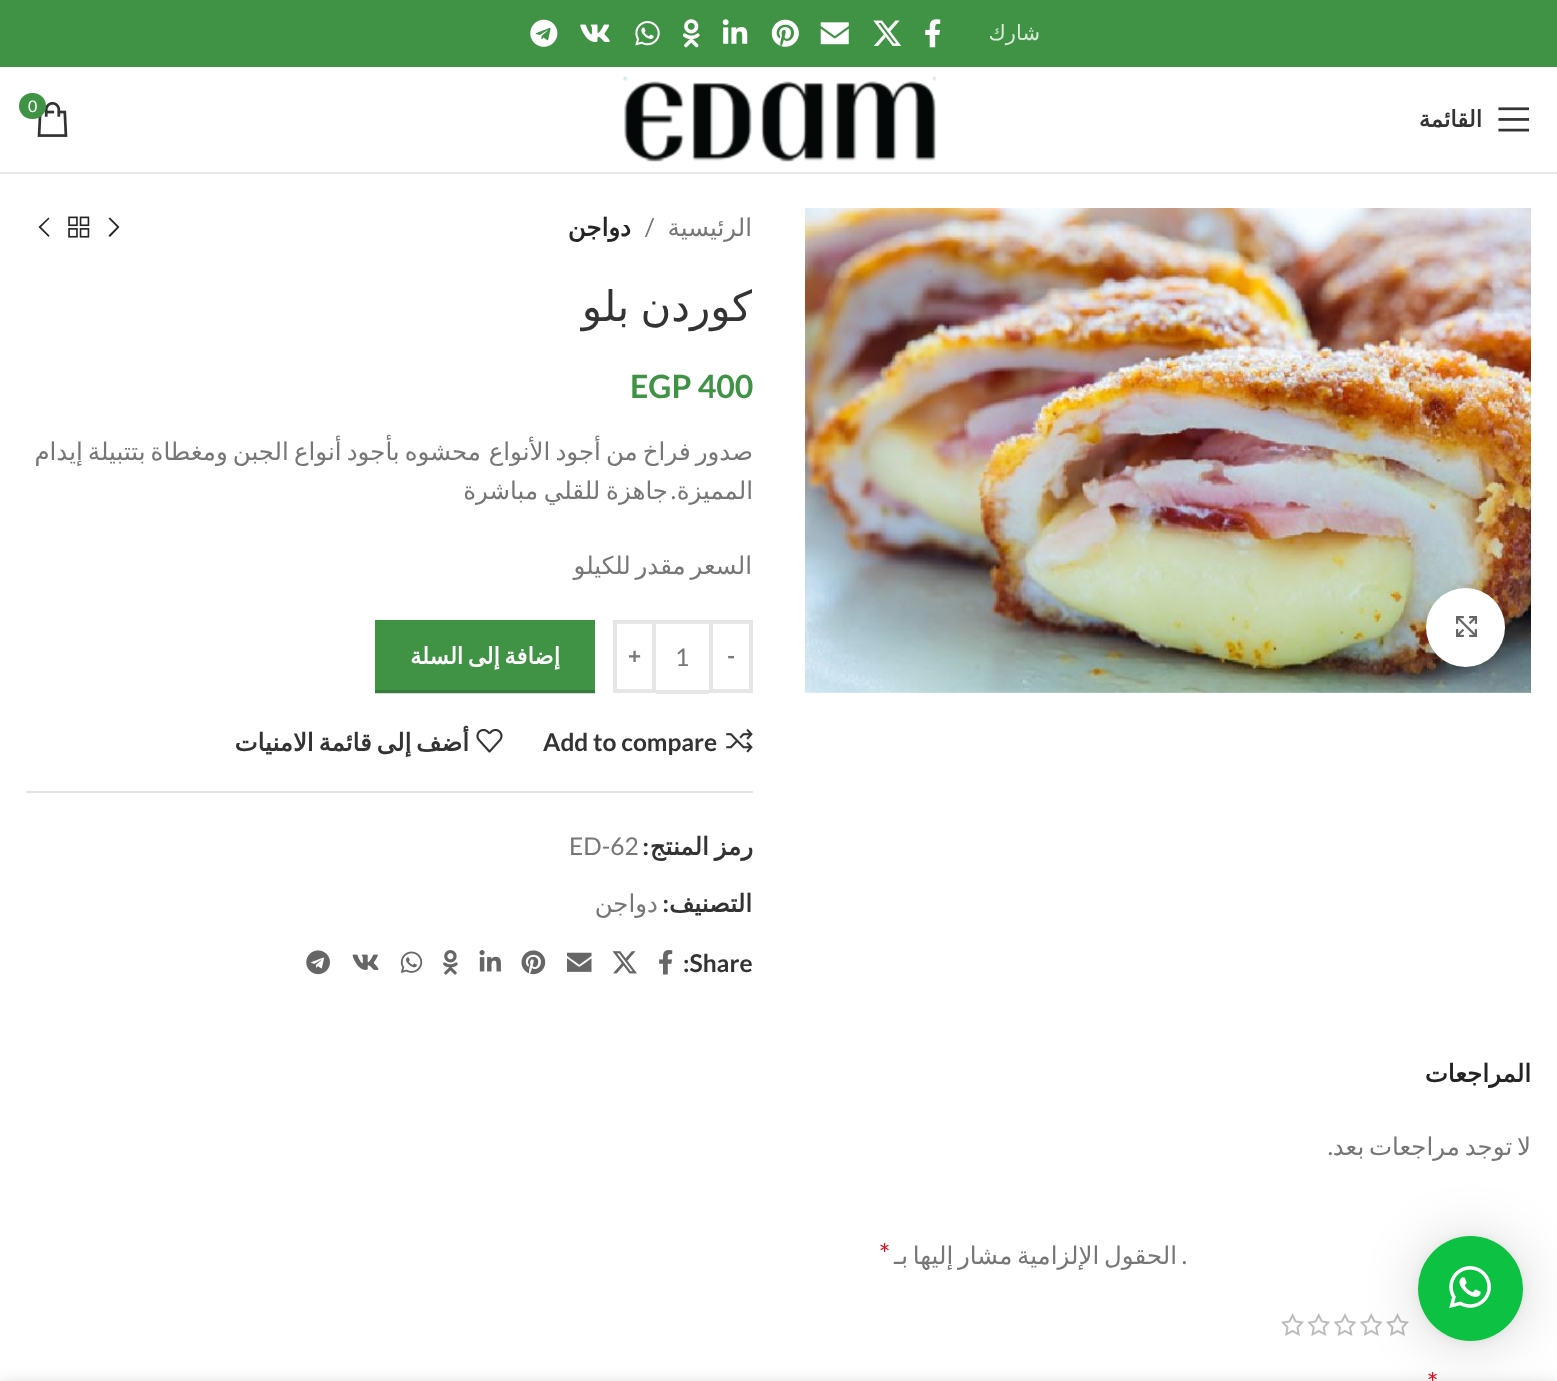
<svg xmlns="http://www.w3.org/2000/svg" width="1557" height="1381">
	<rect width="100%" height="100%" fill="#FFFFFF" />
	<rect x="375" y="693" width="220" height="1" fill="#D9D9D9" />
	<rect x="0" y="0" width="1557" height="67" fill="#409345" />
	<text x="1040" y="40" font-family="DejaVu Sans" font-size="21" direction="rtl" fill="#D9E9DA">شارك</text>
	<image x="925" y="19" width="16" height="29" href="assets/img1.png" />
	<image x="873" y="20" width="29" height="26" href="assets/img2.png" />
	<image x="820" y="22" width="29" height="23" href="assets/img3.png" />
	<image x="771" y="19" width="28" height="28" href="assets/img4.png" />
	<image x="722" y="19" width="26" height="25" href="assets/img5.png" />
	<image x="682" y="19" width="18" height="29" href="assets/img6.png" />
	<image x="635" y="21" width="25" height="25" href="assets/img7.png" />
	<image x="580" y="24" width="30" height="18" href="assets/img8.png" />
	<image x="530" y="19" width="28" height="28" href="assets/img9.png" />
	<rect x="0" y="172" width="1557" height="2" fill="#E8E8E8" />
	<image x="622" y="76" width="315" height="86" href="assets/img10.png" />
	<image x="37" y="101" width="31" height="36" href="assets/img11.png" />
	<rect x="19" y="93" width="27" height="26" rx="13" fill="#409345" />
	<text x="28" y="112" font-family="Lato" font-size="16" fill="#FFFFFF">0</text>
	<image x="1498" y="107" width="32" height="25" href="assets/img12.png" />
	<text x="1482" y="127" font-family="DejaVu Sans" font-size="22.75" font-weight="700" direction="rtl" fill="#333333">القائمة</text>
	<image x="805" y="208" width="726" height="485" href="assets/img13.png" />
	<rect x="1426" y="588" width="79" height="79" rx="39.5" fill="#000000" fill-opacity="0.08" filter="blur(4.5px)" />
	<circle cx="1465.5" cy="627.5" r="39.5" fill="#FFFFFF" />
	<image x="1456" y="616" width="21" height="21" href="assets/img14.png" />
	<text x="752" y="236" font-family="DejaVu Sans" font-size="24.5" direction="rtl" fill="#767676">الرئيسية</text>
	<text x="645" y="236" font-family="Lato" font-size="24.5" fill="#767676">/</text>
	<text x="631" y="236" font-family="DejaVu Sans" font-size="24.5" font-weight="700" direction="rtl" fill="#242424">دواجن</text>
	<path d="M108.5 218.5L117 227L108.5 235.5L110 237L119.5 227L110 217.5Z" fill="#242424" />
	<image x="68" y="216" width="22" height="22" href="assets/img15.png" />
	<path d="M49.5 218.5L48.5 217.5L38.5 227L48.5 237L49.5 235.5L41 227Z" fill="#242424" />
	<text x="752" y="321" word-spacing="-2" font-family="DejaVu Sans" font-size="42" direction="rtl" fill="#333333">كوردن بلو</text>
	<text x="630" y="398" font-family="Lato" font-size="32" font-weight="700" fill="#409345">EGP 400</text>
	<g font-family="DejaVu Sans" font-size="24.5" direction="rtl" fill="#767676">
		<text x="481" y="460" word-spacing="-2.75">محشوه بأجود أنواع الجبن ومغطاة بتتبيلة إيدام</text>
		<text x="753" y="460" word-spacing="-2.75">صدور فراخ من أجود الأنواع</text>
		<text x="753" y="499">المميزة</text>
	</g>
	<text x="676" y="499" font-family="Lato" font-size="24.5" direction="rtl" fill="#767676">.</text>
	<g font-family="DejaVu Sans" font-size="24.5" direction="rtl" fill="#767676">
		<text x="668" y="499" word-spacing="-2">جاهزة للقلي مباشرة</text>
		<text x="752" y="574" word-spacing="-3">السعر مقدر للكيلو</text>
	</g>
	<rect x="711" y="622" width="40" height="69" fill="none" stroke="#E6E6E6" stroke-width="4" />
	<text x="727" y="664" font-family="Lato" font-size="22.75" font-weight="700" fill="#767676">-</text>
	<rect x="656" y="620" width="53" height="4" fill="#E6E6E6" />
	<rect x="656" y="690" width="53" height="4" fill="#E6E6E6" />
	<text x="675" y="666" font-family="Lato" font-size="24.5" fill="#767676">1</text>
	<rect x="615" y="622" width="39" height="69" fill="none" stroke="#E6E6E6" stroke-width="4" />
	<text x="628" y="664" font-family="Lato" font-size="22.75" font-weight="700" fill="#767676">+</text>
	<rect x="375" y="620" width="220" height="70" fill="#409345" />
	<rect x="375" y="690" width="220" height="3" fill="#367D3B" />
	<text x="560" y="664" word-spacing="-2.75" font-family="DejaVu Sans" font-size="22.75" font-weight="700" direction="rtl" fill="#FFFFFF">إضافة إلى السلة</text>
	<image x="726" y="728" width="27" height="25" href="assets/img16.png" />
	<text x="543" y="751" font-family="Lato" font-size="24.5" font-weight="700" fill="#333333">Add to compare</text>
	<image x="476" y="728" width="27" height="25" href="assets/img17.png" />
	<text x="469" y="751" word-spacing="-3" font-family="DejaVu Sans" font-size="24.5" font-weight="700" direction="rtl" fill="#333333">أضف إلى قائمة الامنيات</text>
	<rect x="26" y="791" width="727" height="2" fill="#E4E4E4" />
	<text x="753" y="855" word-spacing="-2" font-family="DejaVu Sans" font-size="24.5" font-weight="700" direction="rtl" fill="#333333">رمز المنتج</text>
	<text x="649" y="855" font-family="Lato" font-size="24.5" font-weight="700" direction="rtl" fill="#333333">:</text>
	<text x="569" y="855" font-family="Lato" font-size="24.5" fill="#767676">ED-62</text>
	<text x="752" y="912" font-family="DejaVu Sans" font-size="24.5" font-weight="700" direction="rtl" fill="#333333">التصنيف</text>
	<text x="669" y="912" font-family="Lato" font-size="24.5" font-weight="700" direction="rtl" fill="#333333">:</text>
	<text x="658" y="912" font-family="DejaVu Sans" font-size="24.5" direction="rtl" fill="#767676">دواجن</text>
	<text x="683" y="972" font-family="Lato" font-size="24.5" font-weight="700" fill="#333333">:Share</text>
	<image x="659" y="950" width="14" height="25" href="assets/img18.png" />
	<image x="612" y="951" width="25" height="23" href="assets/img19.png" />
	<image x="567" y="952" width="25" height="20" href="assets/img20.png" />
	<image x="521" y="950" width="25" height="25" href="assets/img21.png" />
	<image x="479" y="950" width="22" height="22" href="assets/img22.png" />
	<image x="443" y="950" width="15" height="25" href="assets/img23.png" />
	<image x="400" y="951" width="23" height="22" href="assets/img24.png" />
	<image x="352" y="954" width="27" height="16" href="assets/img25.png" />
	<image x="306" y="950" width="24" height="25" href="assets/img26.png" />
	<text x="1531" y="1082" font-family="DejaVu Sans" font-size="24.5" font-weight="700" direction="rtl" fill="#242424">المراجعات</text>
	<text x="1531" y="1155" word-spacing="-3" font-family="DejaVu Sans" font-size="24.5" direction="rtl" fill="#767676">لا توجد مراجعات بعد</text>
	<g font-family="Lato" font-size="24.5" direction="rtl" fill="#767676">
		<text x="1333" y="1155">.</text>
		<text x="1187" y="1264">.</text>
	</g>
	<text x="1177" y="1264" word-spacing="-3" font-family="DejaVu Sans" font-size="24.5" direction="rtl" fill="#767676">الحقول الإلزامية مشار إليها بـ</text>
	<text x="879" y="1264" font-family="Lato" font-size="28" fill="#E01020">*</text>
	<image x="1386" y="1313" width="23" height="23" href="assets/img27.png" />
	<image x="1360" y="1313" width="23" height="23" href="assets/img28.png" />
	<image x="1333" y="1313" width="24" height="23" href="assets/img29.png" />
	<image x="1307" y="1313" width="23" height="23" href="assets/img30.png" />
	<image x="1281" y="1313" width="23" height="23" href="assets/img27.png" />
	<text x="1427" y="1393" font-family="Lato" font-size="28" fill="#E01020">*</text>
	<rect x="1418" y="1239" width="105" height="105" rx="52.5" fill="#000000" fill-opacity="0.16" filter="blur(28px)" />
	<rect x="1418" y="1237" width="105" height="105" rx="52.5" fill="#000000" fill-opacity="0.06" filter="blur(5px)" />
	<circle cx="1470.5" cy="1288.5" r="52.5" fill="#0DC143" />
	<image x="1449" y="1266" width="42" height="43" href="assets/img31.png" />
	<rect x="0" y="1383" width="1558" height="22" fill="#000000" fill-opacity="0.14" filter="blur(8px)" />
</svg>
